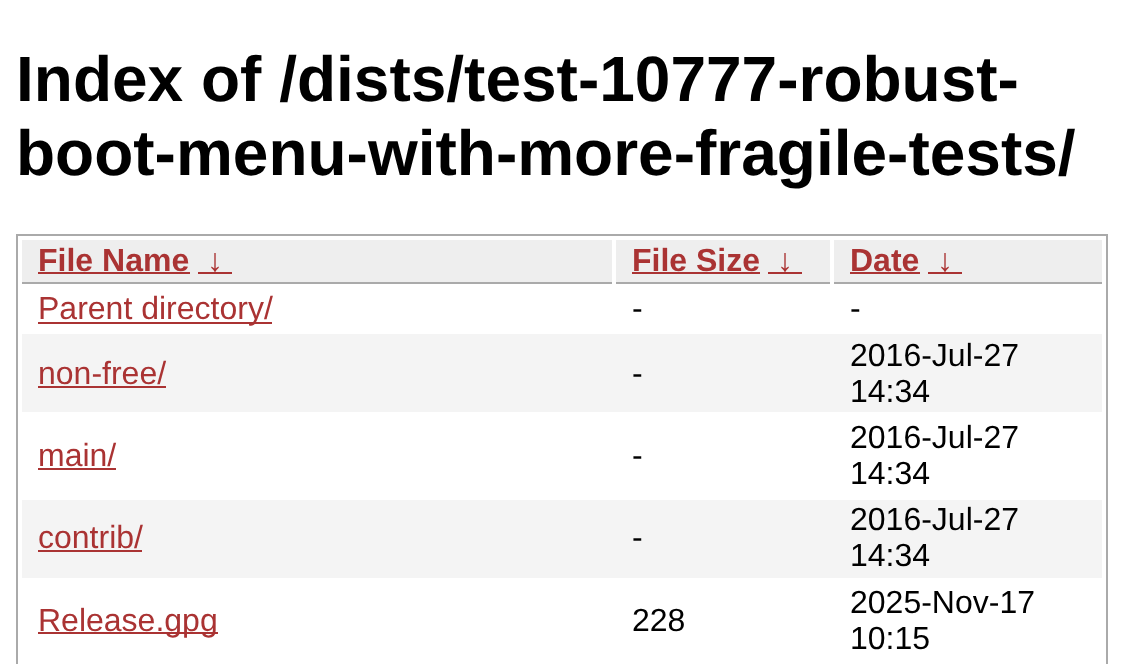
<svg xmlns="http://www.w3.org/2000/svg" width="1124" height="664">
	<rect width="100%" height="100%" fill="#FFFFFF" />
	<g font-family="Liberation Sans" font-size="64" font-weight="700" fill="#000000">
		<text x="16" y="101">Index of /dists/test-10777-robust-</text>
		<text x="16" y="175">boot-menu-with-more-fragile-tests/</text>
	</g>
	<rect x="17" y="235" width="1090" height="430" fill="none" stroke="#AAAAAA" stroke-width="2" />
	<rect x="22" y="240" width="590" height="42" fill="#EEEEEE" />
	<rect x="22" y="282" width="590" height="2" fill="#AAAAAA" />
	<text x="38" y="271" font-family="Liberation Sans" font-size="32" font-weight="700" fill="#AA3333">File Name</text>
	<rect x="38" y="272" width="152" height="2" fill="#AA3333" />
	<text x="207" y="271" font-family="Liberation Sans" font-size="32" font-weight="700" fill="#AA3333">↓</text>
	<rect x="198" y="272" width="34" height="2" fill="#AA3333" />
	<rect x="616" y="240" width="214" height="42" fill="#EEEEEE" />
	<rect x="616" y="282" width="214" height="2" fill="#AAAAAA" />
	<text x="632" y="271" font-family="Liberation Sans" font-size="32" font-weight="700" fill="#AA3333">File Size</text>
	<rect x="632" y="272" width="128" height="2" fill="#AA3333" />
	<text x="777" y="271" font-family="Liberation Sans" font-size="32" font-weight="700" fill="#AA3333">↓</text>
	<rect x="768" y="272" width="34" height="2" fill="#AA3333" />
	<rect x="834" y="240" width="268" height="42" fill="#EEEEEE" />
	<rect x="834" y="282" width="268" height="2" fill="#AAAAAA" />
	<text x="850" y="271" font-family="Liberation Sans" font-size="32" font-weight="700" fill="#AA3333">Date</text>
	<rect x="850" y="272" width="70" height="2" fill="#AA3333" />
	<text x="937" y="271" font-family="Liberation Sans" font-size="32" font-weight="700" fill="#AA3333">↓</text>
	<rect x="928" y="272" width="34" height="2" fill="#AA3333" />
	<rect x="38" y="322" width="234" height="2" fill="#AA3333" />
	<text x="38" y="319" font-family="Liberation Sans" font-size="32" fill="#AA3333">Parent directory/</text>
	<g font-family="Liberation Sans" font-size="32" fill="#000000">
		<text x="632" y="319">-</text>
		<text x="850" y="319">-</text>
	</g>
	<rect x="22" y="334" width="1080" height="78" fill="#F4F4F4" />
	<text x="38" y="384" font-family="Liberation Sans" font-size="32" fill="#AA3333">non-free/</text>
	<rect x="38" y="386" width="128" height="2" fill="#AA3333" />
	<g font-family="Liberation Sans" font-size="32" fill="#000000">
		<text x="632" y="384">-</text>
		<text x="850" y="366">2016-Jul-27</text>
		<text x="850" y="402">14:34</text>
	</g>
	<text x="38" y="466" font-family="Liberation Sans" font-size="32" fill="#AA3333">main/</text>
	<rect x="38" y="468" width="78" height="2" fill="#AA3333" />
	<g font-family="Liberation Sans" font-size="32" fill="#000000">
		<text x="632" y="466">-</text>
		<text x="850" y="448">2016-Jul-27</text>
		<text x="850" y="484">14:34</text>
	</g>
	<rect x="22" y="500" width="1080" height="78" fill="#F4F4F4" />
	<text x="38" y="548" font-family="Liberation Sans" font-size="32" fill="#AA3333">contrib/</text>
	<rect x="38" y="550" width="104" height="2" fill="#AA3333" />
	<g font-family="Liberation Sans" font-size="32" fill="#000000">
		<text x="632" y="548">-</text>
		<text x="850" y="530">2016-Jul-27</text>
		<text x="850" y="566">14:34</text>
	</g>
	<rect x="38" y="632" width="180" height="2" fill="#AA3333" />
	<text x="38" y="631" font-family="Liberation Sans" font-size="32" fill="#AA3333">Release.gpg</text>
	<g font-family="Liberation Sans" font-size="32" fill="#000000">
		<text x="632" y="631">228</text>
		<text x="850" y="613">2025-Nov-17</text>
		<text x="850" y="649">10:15</text>
	</g>
</svg>
